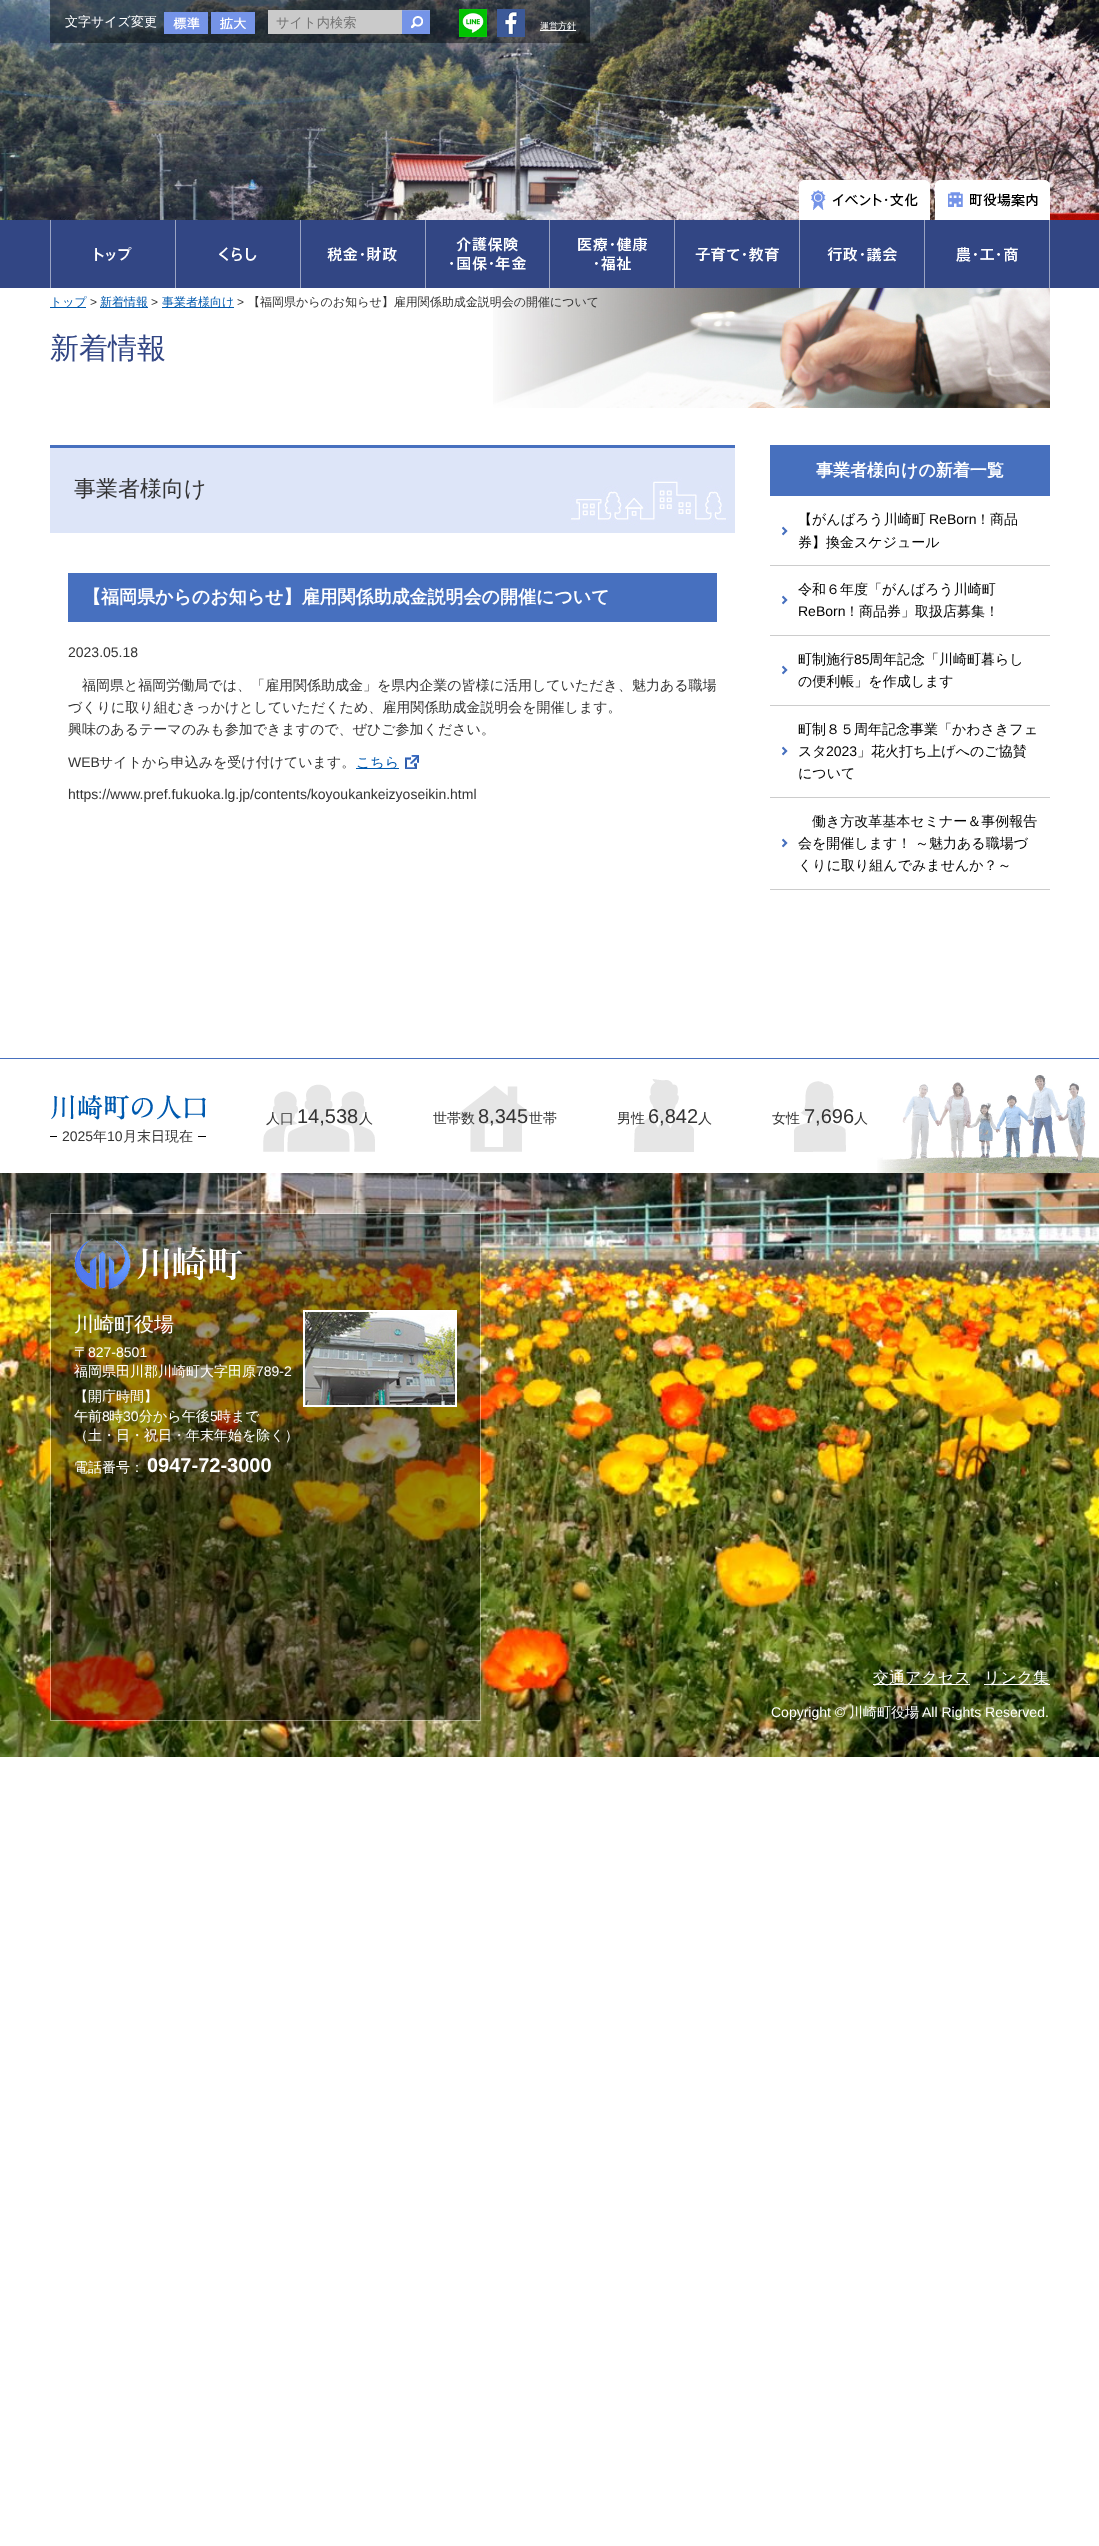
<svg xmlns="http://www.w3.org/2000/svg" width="1099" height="2546">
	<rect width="100%" height="100%" fill="#FFFFFF" />
	<image x="0" y="0" width="1099" height="220" href="assets/img1.png" />
	<rect x="50" y="0" width="540" height="43" fill="#000000" fill-opacity="0.44" />
	<text x="65" y="26" font-family="WenQuanYi Zen Hei" font-size="13" font-weight="500" fill="#FFFFFF">文字サイズ変更</text>
	<image x="164" y="12" width="44" height="22" href="assets/img2.png" />
	<image x="211" y="12" width="44" height="22" href="assets/img3.png" />
	<rect x="268" y="10" width="134" height="24" fill="#CACACA" />
	<text x="276" y="27" font-family="WenQuanYi Zen Hei" font-size="13.25" font-weight="500" fill="#757575">サイト内検索</text>
	<image x="402" y="10" width="28" height="24" href="assets/img4.png" />
	<image x="459" y="9" width="28" height="28" href="assets/img5.png" />
	<image x="497" y="9" width="28" height="28" href="assets/img6.png" />
	<rect x="540" y="30" width="36" height="1" fill="#FFFFFF" />
	<text x="540" y="29" font-family="WenQuanYi Zen Hei" font-size="9" font-weight="500" fill="#FFFFFF">運営方針</text>
	<image x="799" y="180" width="131" height="40" href="assets/img7.png" />
	<image x="935" y="180" width="115" height="40" href="assets/img8.png" />
	<rect x="0" y="220" width="1099" height="68" fill="#324684" />
	<image x="50" y="220" width="82" height="68" href="assets/img9.png" />
	<image x="175" y="220" width="82" height="68" href="assets/img10.png" />
	<image x="300" y="220" width="97" height="68" href="assets/img11.png" />
	<image x="425" y="220" width="101" height="68" href="assets/img12.png" />
	<image x="549" y="220" width="98" height="68" href="assets/img13.png" />
	<image x="674" y="220" width="105" height="68" href="assets/img14.png" />
	<image x="799" y="220" width="98" height="68" href="assets/img15.png" />
	<image x="924" y="220" width="126" height="68" href="assets/img16.png" />
	<rect x="50" y="307" width="36" height="1" fill="#005AAF" />
	<text x="50" y="306" font-family="WenQuanYi Zen Hei" font-size="12" font-weight="500" fill="#005AAF">トップ</text>
	<text x="90" y="306" font-family="Liberation Sans" font-size="12" fill="#333333">&gt;</text>
	<rect x="100" y="307" width="48" height="1" fill="#005AAF" />
	<text x="100" y="306" font-family="WenQuanYi Zen Hei" font-size="12" font-weight="500" fill="#005AAF">新着情報</text>
	<text x="151" y="306" font-family="Liberation Sans" font-size="12" fill="#333333">&gt;</text>
	<rect x="162" y="307" width="72" height="1" fill="#005AAF" />
	<text x="162" y="306" font-family="WenQuanYi Zen Hei" font-size="12" font-weight="500" fill="#005AAF">事業者様向け</text>
	<text x="237" y="306" font-family="Liberation Sans" font-size="12" fill="#333333">&gt;</text>
	<image x="493" y="288" width="557" height="120" href="assets/img17.png" />
	<text x="248" y="306" font-family="WenQuanYi Zen Hei" font-size="12" font-weight="500" fill="#333333">【福岡県からのお知らせ】雇用関係助成金説明会の開催について</text>
	<text x="50" y="358" font-family="WenQuanYi Zen Hei" font-size="29" font-weight="500" fill="#324684">新着情報</text>
	<image x="50" y="445" width="685" height="88" href="assets/img18.png" />
	<text x="74" y="496" font-family="WenQuanYi Zen Hei" font-size="22" font-weight="500" fill="#333333">事業者様向け</text>
	<rect x="68" y="573" width="649" height="49" fill="#4770BF" />
	<text x="83" y="603" font-family="WenQuanYi Zen Hei" font-size="18" font-weight="700" fill="#FFFFFF">【福岡県からのお知らせ】雇用関係助成金説明会の開催について</text>
	<text x="68" y="657" font-family="Liberation Sans" font-size="14" fill="#333333">2023.05.18</text>
	<g font-family="WenQuanYi Zen Hei" font-size="14" font-weight="500" fill="#333333">
		<text x="82" y="690">福岡県と福岡労働局では、「雇用関係助成金」を県内企業の皆様に活用していただき、魅力ある職場</text>
		<text x="68" y="712">づくりに取り組むきっかけとしていただくため、雇用関係助成金説明会を開催します。</text>
		<text x="68" y="734">興味のあるテーマのみも参加できますので、ぜひご参加ください。</text>
	</g>
	<text x="68" y="767" font-family="Liberation Sans" font-size="14" fill="#333333">WEB</text>
	<text x="99" y="767" font-family="WenQuanYi Zen Hei" font-size="14" font-weight="500" fill="#333333">サイトから申込みを受け付けています。</text>
	<rect x="356" y="768" width="43" height="1" fill="#005AAF" />
	<text x="356" y="767" font-family="WenQuanYi Zen Hei" font-size="14" font-weight="500" fill="#005AAF">こちら</text>
	<image x="405" y="755" width="14" height="14" href="assets/img19.png" />
	<text x="68" y="799" font-family="Liberation Sans" font-size="14" fill="#333333">https://www.pref.fukuoka.lg.jp/contents/koyoukankeizyoseikin.html</text>
	<rect x="770" y="445" width="280" height="51" fill="#4770BE" />
	<text x="816" y="476" font-family="WenQuanYi Zen Hei" font-size="17" font-weight="700" fill="#FFFFFF">事業者様向けの新着一覧</text>
	<rect x="770" y="565" width="280" height="1" fill="#CCCCCC" />
	<image x="782" y="526" width="6" height="10" href="assets/img20.png" />
	<text x="798" y="524" font-family="WenQuanYi Zen Hei" font-size="14" font-weight="500" fill="#000000">【がんばろう川崎町</text>
	<text x="929" y="524" font-family="Liberation Sans" font-size="14" fill="#000000">ReBorn</text>
	<g font-family="WenQuanYi Zen Hei" font-size="14" font-weight="500" fill="#000000">
		<text x="976" y="524">！商品</text>
		<text x="798" y="547">券】換金スケジュール</text>
	</g>
	<rect x="770" y="635" width="280" height="1" fill="#CCCCCC" />
	<image x="782" y="595" width="6" height="10" href="assets/img20.png" />
	<text x="798" y="594" font-family="WenQuanYi Zen Hei" font-size="14" font-weight="500" fill="#000000">令和６年度「がんばろう川崎町</text>
	<text x="798" y="616" font-family="Liberation Sans" font-size="14" fill="#000000">ReBorn</text>
	<text x="845" y="616" font-family="WenQuanYi Zen Hei" font-size="14" font-weight="500" fill="#000000">！商品券」取扱店募集！</text>
	<rect x="770" y="705" width="280" height="1" fill="#CCCCCC" />
	<image x="782" y="665" width="6" height="10" href="assets/img20.png" />
	<text x="798" y="664" font-family="WenQuanYi Zen Hei" font-size="14" font-weight="500" fill="#000000">町制施行</text>
	<text x="854" y="664" font-family="Liberation Sans" font-size="14" fill="#000000">85</text>
	<g font-family="WenQuanYi Zen Hei" font-size="14" font-weight="500" fill="#000000">
		<text x="869" y="664">周年記念「川崎町暮らし</text>
		<text x="798" y="686">の便利帳」を作成します</text>
	</g>
	<rect x="770" y="797" width="280" height="1" fill="#CCCCCC" />
	<image x="782" y="746" width="6" height="10" href="assets/img20.png" />
	<g font-family="WenQuanYi Zen Hei" font-size="14" font-weight="500" fill="#000000">
		<text x="798" y="734">町制８５周年記念事業「かわさきフェ</text>
		<text x="798" y="756">スタ</text>
	</g>
	<text x="826" y="756" font-family="Liberation Sans" font-size="14" fill="#000000">2023</text>
	<g font-family="WenQuanYi Zen Hei" font-size="14" font-weight="500" fill="#000000">
		<text x="857" y="756">」花火打ち上げへのご協賛</text>
		<text x="798" y="778">について</text>
	</g>
	<rect x="770" y="889" width="280" height="1" fill="#CCCCCC" />
	<image x="782" y="838" width="6" height="10" href="assets/img20.png" />
	<g font-family="WenQuanYi Zen Hei" font-size="14" font-weight="500" fill="#000000">
		<text x="812" y="826">働き方改革基本セミナー＆事例報告</text>
		<text x="798" y="848">会を開催します！</text>
		<text x="915" y="848">～魅力ある職場づ</text>
		<text x="798" y="870">くりに取り組んでみませんか？～</text>
	</g>
	<image x="877" y="1075" width="222" height="98" href="assets/img21.png" />
	<rect x="0" y="1058" width="1099" height="1" fill="#4770BE" />
	<image x="263" y="1084" width="112" height="68" href="assets/img22.png" />
	<text x="266" y="1123" font-family="WenQuanYi Zen Hei" font-size="14" font-weight="500" fill="#333333">人口</text>
	<text x="297" y="1123" font-family="Liberation Sans" font-size="20" fill="#333333">14,538</text>
	<text x="359" y="1123" font-family="WenQuanYi Zen Hei" font-size="14" font-weight="500" fill="#333333">人</text>
	<image x="459" y="1085" width="72" height="67" href="assets/img23.png" />
	<text x="433" y="1123" font-family="WenQuanYi Zen Hei" font-size="14" font-weight="500" fill="#333333">世帯数</text>
	<text x="478" y="1123" font-family="Liberation Sans" font-size="20" fill="#333333">8,345</text>
	<text x="529" y="1123" font-family="WenQuanYi Zen Hei" font-size="14" font-weight="500" fill="#333333">世帯</text>
	<image x="634" y="1079" width="60" height="73" href="assets/img24.png" />
	<text x="617" y="1123" font-family="WenQuanYi Zen Hei" font-size="14" font-weight="500" fill="#333333">男性</text>
	<text x="648" y="1123" font-family="Liberation Sans" font-size="20" fill="#333333">6,842</text>
	<text x="698" y="1123" font-family="WenQuanYi Zen Hei" font-size="14" font-weight="500" fill="#333333">人</text>
	<image x="794" y="1081" width="52" height="71" href="assets/img25.png" />
	<text x="772" y="1123" font-family="WenQuanYi Zen Hei" font-size="14" font-weight="500" fill="#333333">女性</text>
	<text x="804" y="1123" font-family="Liberation Sans" font-size="20" fill="#333333">7,696</text>
	<text x="854" y="1123" font-family="WenQuanYi Zen Hei" font-size="14" font-weight="500" fill="#333333">人</text>
	<image x="51" y="1095" width="155" height="25" href="assets/img26.png" />
	<rect x="50" y="1136" width="156" height="1" fill="#000000" />
	<rect x="57" y="1136" width="141" height="1" fill="#FFFFFF" />
	<text x="62" y="1141" font-family="Liberation Sans" font-size="14" fill="#333333">2025</text>
	<text x="93" y="1141" font-family="WenQuanYi Zen Hei" font-size="14" font-weight="500" fill="#333333">年</text>
	<text x="107" y="1141" font-family="Liberation Sans" font-size="14" fill="#333333">10</text>
	<text x="123" y="1141" font-family="WenQuanYi Zen Hei" font-size="14" font-weight="500" fill="#333333">月末日現在</text>
	<image x="0" y="1173" width="1099" height="584" href="assets/img27.png" />
	<rect x="51" y="1214" width="429" height="506" fill="#000000" fill-opacity="0.4" />
	<rect x="50.5" y="1213.5" width="430" height="507" fill="none" stroke="#FFFFFF" stroke-opacity="0.4" />
	<image x="74" y="1237" width="169" height="53" href="assets/img28.png" />
	<text x="74" y="1331" font-family="WenQuanYi Zen Hei" font-size="20" font-weight="500" fill="#FFFFFF">川崎町役場</text>
	<image x="303" y="1310" width="154" height="97" href="assets/img29.png" />
	<text x="74" y="1357" font-family="WenQuanYi Zen Hei" font-size="14" font-weight="500" fill="#FFFFFF">〒</text>
	<text x="88" y="1357" font-family="Liberation Sans" font-size="14" fill="#FFFFFF">827-8501</text>
	<text x="74" y="1376" font-family="WenQuanYi Zen Hei" font-size="14" font-weight="500" fill="#FFFFFF">福岡県田川郡川崎町大字田原</text>
	<text x="256" y="1376" font-family="Liberation Sans" font-size="14" fill="#FFFFFF">789-2</text>
	<g font-family="WenQuanYi Zen Hei" font-size="14" font-weight="500" fill="#FFFFFF">
		<text x="74" y="1401">【開庁時間】</text>
		<text x="74" y="1421">午前</text>
	</g>
	<text x="102" y="1421" font-family="Liberation Sans" font-size="14" fill="#FFFFFF">8</text>
	<text x="109" y="1421" font-family="WenQuanYi Zen Hei" font-size="14" font-weight="500" fill="#FFFFFF">時</text>
	<text x="123" y="1421" font-family="Liberation Sans" font-size="14" fill="#FFFFFF">30</text>
	<text x="139" y="1421" font-family="WenQuanYi Zen Hei" font-size="14" font-weight="500" fill="#FFFFFF">分から午後</text>
	<text x="210" y="1421" font-family="Liberation Sans" font-size="14" fill="#FFFFFF">5</text>
	<g font-family="WenQuanYi Zen Hei" font-size="14" font-weight="500" fill="#FFFFFF">
		<text x="217" y="1421">時まで</text>
		<text x="74" y="1440">（土・日・祝日・年末年始を除く）</text>
		<text x="74" y="1472">電話番号：</text>
	</g>
	<text x="147" y="1472" font-family="Liberation Sans" font-size="20" font-weight="700" fill="#FFFFFF">0947-72-3000</text>
	<rect x="873" y="1684" width="97" height="1" fill="#FFFFFF" />
	<text x="873" y="1683" font-family="WenQuanYi Zen Hei" font-size="16" font-weight="500" fill="#FFFFFF">交通アクセス</text>
	<rect x="984" y="1684" width="66" height="1" fill="#FFFFFF" />
	<text x="984" y="1683" font-family="WenQuanYi Zen Hei" font-size="16" font-weight="500" fill="#FFFFFF">リンク集</text>
	<text x="771" y="1717" font-family="Liberation Sans" font-size="14" fill="#FFFFFF">Copyright ©</text>
	<text x="849" y="1717" font-family="WenQuanYi Zen Hei" font-size="14" font-weight="500" fill="#FFFFFF">川崎町役場</text>
	<text x="922" y="1717" font-family="Liberation Sans" font-size="14" fill="#FFFFFF">All Rights Reserved.</text>
</svg>
